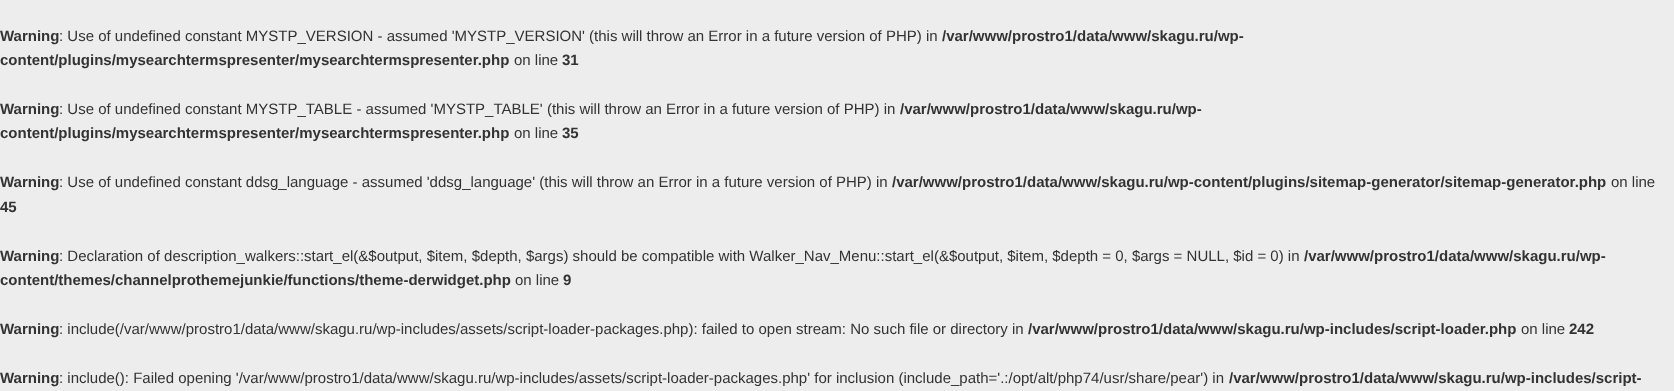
<svg xmlns="http://www.w3.org/2000/svg" width="1674" height="391">
	<rect width="100%" height="100%" fill="#EDEDED" />
	<text x="0" y="41" font-family="Liberation Sans" font-size="15" font-weight="700" fill="#333333">Warning</text>
	<text x="59" y="41" font-family="Liberation Sans" font-size="15" fill="#333333">: Use of undefined constant MYSTP_VERSION - assumed 'MYSTP_VERSION' (this will throw an Error in a future version of PHP) in</text>
	<g font-family="Liberation Sans" font-size="15" font-weight="700" fill="#333333">
		<text x="942" y="41">/var/www/prostro1/data/www/skagu.ru/wp-</text>
		<text x="0" y="65">content/plugins/mysearchtermspresenter/mysearchtermspresenter.php</text>
	</g>
	<text x="514" y="65" font-family="Liberation Sans" font-size="15" fill="#333333">on line</text>
	<g font-family="Liberation Sans" font-size="15" font-weight="700" fill="#333333">
		<text x="562" y="65">31</text>
		<text x="0" y="114">Warning</text>
	</g>
	<text x="59" y="114" font-family="Liberation Sans" font-size="15" fill="#333333">: Use of undefined constant MYSTP_TABLE - assumed 'MYSTP_TABLE' (this will throw an Error in a future version of PHP) in</text>
	<g font-family="Liberation Sans" font-size="15" font-weight="700" fill="#333333">
		<text x="900" y="114">/var/www/prostro1/data/www/skagu.ru/wp-</text>
		<text x="0" y="138">content/plugins/mysearchtermspresenter/mysearchtermspresenter.php</text>
	</g>
	<text x="514" y="138" font-family="Liberation Sans" font-size="15" fill="#333333">on line</text>
	<g font-family="Liberation Sans" font-size="15" font-weight="700" fill="#333333">
		<text x="562" y="138">35</text>
		<text x="0" y="187">Warning</text>
	</g>
	<text x="59" y="187" font-family="Liberation Sans" font-size="15" fill="#333333">: Use of undefined constant ddsg_language - assumed 'ddsg_language' (this will throw an Error in a future version of PHP) in</text>
	<text x="892" y="187" font-family="Liberation Sans" font-size="15" font-weight="700" fill="#333333">/var/www/prostro1/data/www/skagu.ru/wp-content/plugins/sitemap-generator/sitemap-generator.php</text>
	<text x="1611" y="187" font-family="Liberation Sans" font-size="15" fill="#333333">on line</text>
	<g font-family="Liberation Sans" font-size="15" font-weight="700" fill="#333333">
		<text x="0" y="212">45</text>
		<text x="0" y="261">Warning</text>
	</g>
	<text x="59" y="261" font-family="Liberation Sans" font-size="15" fill="#333333">: Declaration of description_walkers::start_el(&amp;$output, $item, $depth, $args) should be compatible with Walker_Nav_Menu::start_el(&amp;$output, $item, $depth = 0, $args = NULL, $id = 0) in</text>
	<g font-family="Liberation Sans" font-size="15" font-weight="700" fill="#333333">
		<text x="1304" y="261">/var/www/prostro1/data/www/skagu.ru/wp-</text>
		<text x="0" y="285">content/themes/channelprothemejunkie/functions/theme-derwidget.php</text>
	</g>
	<text x="515" y="285" font-family="Liberation Sans" font-size="15" fill="#333333">on line</text>
	<g font-family="Liberation Sans" font-size="15" font-weight="700" fill="#333333">
		<text x="563" y="285">9</text>
		<text x="0" y="334">Warning</text>
	</g>
	<text x="59" y="334" font-family="Liberation Sans" font-size="15" fill="#333333">: include(/var/www/prostro1/data/www/skagu.ru/wp-includes/assets/script-loader-packages.php): failed to open stream: No such file or directory in</text>
	<text x="1028" y="334" font-family="Liberation Sans" font-size="15" font-weight="700" fill="#333333">/var/www/prostro1/data/www/skagu.ru/wp-includes/script-loader.php</text>
	<text x="1521" y="334" font-family="Liberation Sans" font-size="15" fill="#333333">on line</text>
	<g font-family="Liberation Sans" font-size="15" font-weight="700" fill="#333333">
		<text x="1569" y="334">242</text>
		<text x="0" y="383">Warning</text>
	</g>
	<text x="59" y="383" font-family="Liberation Sans" font-size="15" fill="#333333">: include(): Failed opening '/var/www/prostro1/data/www/skagu.ru/wp-includes/assets/script-loader-packages.php' for inclusion (include_path='.:/opt/alt/php74/usr/share/pear') in</text>
	<text x="1229" y="383" font-family="Liberation Sans" font-size="15" font-weight="700" fill="#333333">/var/www/prostro1/data/www/skagu.ru/wp-includes/script-</text>
</svg>
